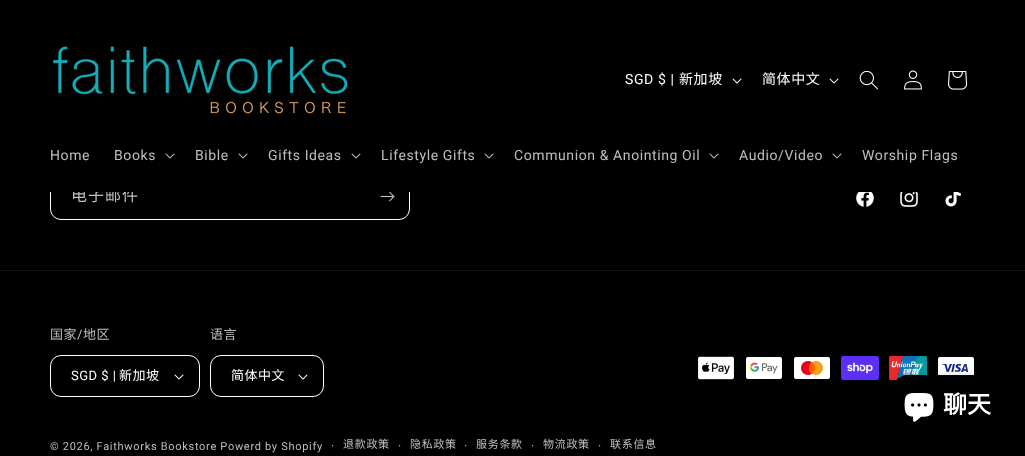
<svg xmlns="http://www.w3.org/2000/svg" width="1025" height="456">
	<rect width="100%" height="100%" fill="#000000" />
	<rect x="50.5" y="173.5" width="359" height="46" rx="10.5" fill="none" stroke="#FFFFFF" />
	<text x="71" y="201" font-family="Noto Sans CJK SC" font-size="16" letter-spacing="1" fill="#BFBFBF">电子邮件</text>
	<rect x="50" y="173" width="360" height="19" fill="#000000" />
	<image x="53" y="46" width="295" height="68" href="assets/img1.png" />
	<text x="625" y="84" font-family="Roboto" font-size="14" letter-spacing="0.6" fill="#FFFFFF">SGD $ |</text>
	<text x="679" y="84" font-family="Noto Sans CJK SC" font-size="14" letter-spacing="0.6" fill="#FFFFFF">新加坡</text>
	<image x="732" y="78" width="10" height="6" href="assets/img2.png" />
	<text x="762" y="84" font-family="Noto Sans CJK SC" font-size="14" letter-spacing="0.6" fill="#FFFFFF">简体中文</text>
	<image x="829" y="78" width="10" height="6" href="assets/img2.png" />
	<image x="859" y="70" width="19" height="20" href="assets/img3.png" />
	<image x="904" y="70" width="18" height="20" href="assets/img4.png" />
	<image x="948" y="71" width="20" height="19" href="assets/img5.png" />
	<g font-family="Roboto" font-size="14" letter-spacing="0.6" fill="#BFBFBF">
		<text x="50" y="160">Home</text>
		<text x="114" y="160">Books</text>
	</g>
	<image x="165" y="153" width="10" height="6" href="assets/img6.png" />
	<text x="195" y="160" font-family="Roboto" font-size="14" letter-spacing="0.6" fill="#BFBFBF">Bible</text>
	<image x="238" y="153" width="10" height="6" href="assets/img6.png" />
	<text x="268" y="160" font-family="Roboto" font-size="14" letter-spacing="0.6" fill="#BFBFBF">Gifts Ideas</text>
	<image x="351" y="153" width="10" height="6" href="assets/img6.png" />
	<text x="381" y="160" font-family="Roboto" font-size="14" letter-spacing="0.6" fill="#BFBFBF">Lifestyle Gifts</text>
	<image x="484" y="153" width="10" height="6" href="assets/img6.png" />
	<text x="514" y="160" font-family="Roboto" font-size="14" letter-spacing="0.6" fill="#BFBFBF">Communion &amp; Anointing Oil</text>
	<image x="709" y="153" width="10" height="6" href="assets/img6.png" />
	<text x="739" y="160" font-family="Roboto" font-size="14" letter-spacing="0.6" fill="#BFBFBF">Audio/Video</text>
	<image x="832" y="153" width="10" height="6" href="assets/img6.png" />
	<text x="862" y="160" font-family="Roboto" font-size="14" letter-spacing="0.6" fill="#BFBFBF">Worship Flags</text>
	<image x="380" y="192" width="15" height="10" href="assets/img7.png" />
	<image x="856" y="192" width="18" height="15" href="assets/img8.png" />
	<image x="900" y="192" width="18" height="15" href="assets/img9.png" />
	<image x="945" y="192" width="16" height="15" href="assets/img10.png" />
	<rect x="0" y="270" width="1025" height="1" fill="#141414" />
	<text x="50" y="339" font-family="Noto Sans CJK SC" font-size="13" letter-spacing="0.5" fill="#BFBFBF">国家</text>
	<text x="77" y="339" font-family="Roboto" font-size="13" letter-spacing="0.5" fill="#BFBFBF">/</text>
	<text x="83" y="339" font-family="Noto Sans CJK SC" font-size="13" letter-spacing="0.5" fill="#BFBFBF">地区</text>
	<image x="174" y="374" width="10" height="6" href="assets/img2.png" />
	<rect x="50.5" y="355.5" width="149" height="41" rx="10.5" fill="none" stroke="#FFFFFF" />
	<text x="71" y="380" font-family="Roboto" font-size="13" letter-spacing="0.5" fill="#FFFFFF">SGD $ |</text>
	<text x="119" y="380" font-family="Noto Sans CJK SC" font-size="13" letter-spacing="0.5" fill="#FFFFFF">新加坡</text>
	<text x="210" y="339" font-family="Noto Sans CJK SC" font-size="13" letter-spacing="0.5" fill="#BFBFBF">语言</text>
	<image x="298" y="374" width="10" height="6" href="assets/img2.png" />
	<rect x="210.5" y="355.5" width="113" height="41" rx="10.5" fill="none" stroke="#FFFFFF" />
	<text x="231" y="380" font-family="Noto Sans CJK SC" font-size="13" letter-spacing="0.5" fill="#FFFFFF">简体中文</text>
	<image x="698" y="356" width="36" height="24" href="assets/img11.png" />
	<image x="746" y="357" width="36" height="22" href="assets/img12.png" />
	<image x="794" y="357" width="36" height="22" href="assets/img13.png" />
	<image x="841" y="356" width="38" height="24" href="assets/img14.png" />
	<image x="889" y="356" width="38" height="24" href="assets/img15.png" />
	<image x="938" y="357" width="36" height="18" href="assets/img16.png" />
	<text x="50" y="450" font-family="Roboto" font-size="11" letter-spacing="0.7" fill="#BFBFBF">© 2026, Faithworks Bookstore Powerd by Shopify</text>
	<text x="331" y="450" font-family="Roboto" font-size="12" letter-spacing="0.7" fill="#BFBFBF">·</text>
	<text x="343" y="448" font-family="Noto Sans CJK SC" font-size="11" letter-spacing="0.7" fill="#BFBFBF">退款政策</text>
	<text x="398" y="450" font-family="Roboto" font-size="12" letter-spacing="0.7" fill="#BFBFBF">·</text>
	<text x="410" y="448" font-family="Noto Sans CJK SC" font-size="11" letter-spacing="0.7" fill="#BFBFBF">隐私政策</text>
	<text x="464" y="450" font-family="Roboto" font-size="12" letter-spacing="0.7" fill="#BFBFBF">·</text>
	<text x="476" y="448" font-family="Noto Sans CJK SC" font-size="11" letter-spacing="0.7" fill="#BFBFBF">服务条款</text>
	<text x="531" y="450" font-family="Roboto" font-size="12" letter-spacing="0.7" fill="#BFBFBF">·</text>
	<text x="543" y="448" font-family="Noto Sans CJK SC" font-size="11" letter-spacing="0.7" fill="#BFBFBF">物流政策</text>
	<text x="598" y="450" font-family="Roboto" font-size="12" letter-spacing="0.7" fill="#BFBFBF">·</text>
	<text x="610" y="448" font-family="Noto Sans CJK SC" font-size="11" letter-spacing="0.7" fill="#BFBFBF">联系信息</text>
	<rect x="892" y="375" width="111" height="60" rx="16" fill="#000000" fill-opacity="0.15" filter="blur(2.5px)" />
	<rect x="892" y="375" width="111" height="60" rx="16" fill="#000000" />
	<image x="904" y="393" width="30" height="29" href="assets/img17.png" />
	<text x="943" y="413" font-family="Noto Sans CJK SC" font-size="24" font-weight="700" fill="#FFFFFF">聊天</text>
</svg>
